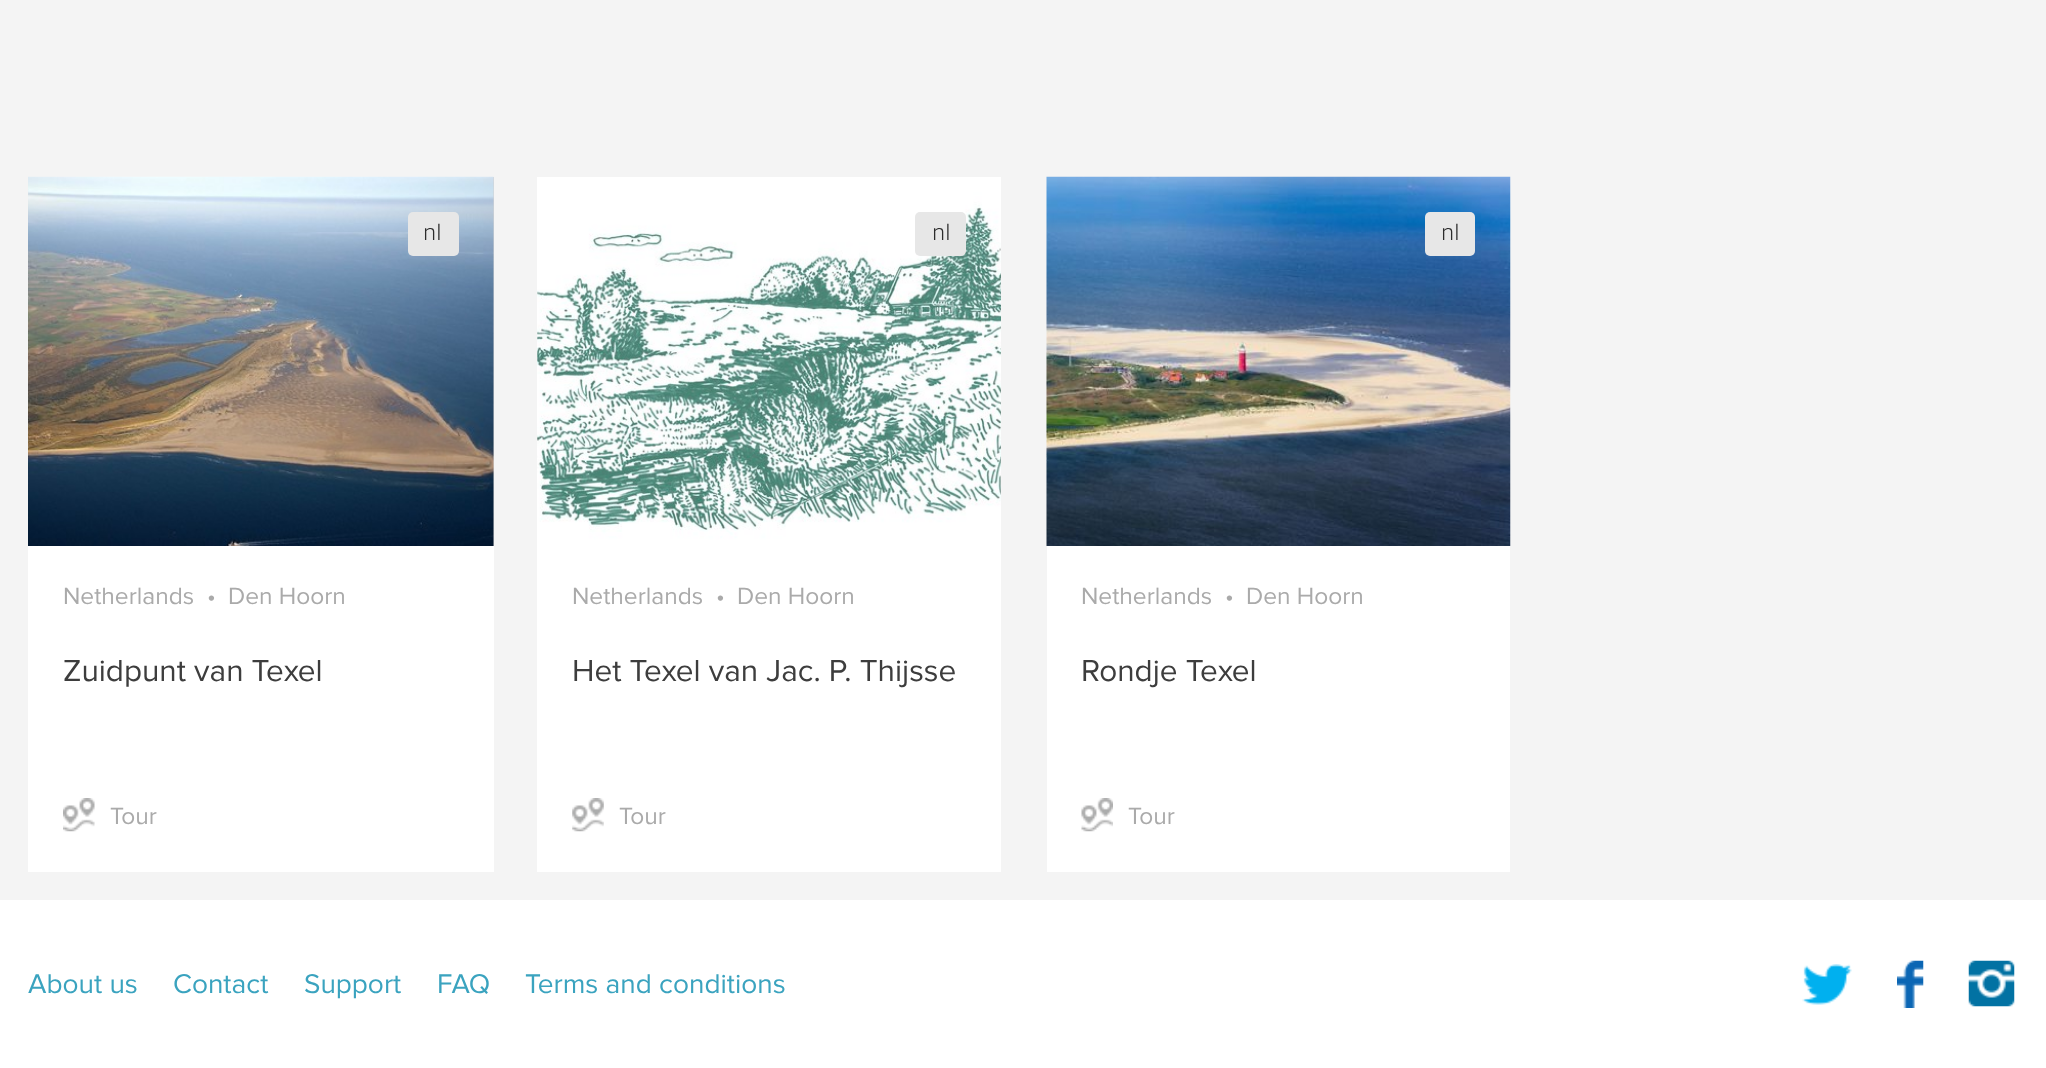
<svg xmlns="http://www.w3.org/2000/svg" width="2046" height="1068">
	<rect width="100%" height="100%" fill="#F4F4F4" />
	<rect x="28" y="546" width="466" height="326" fill="#FFFFFF" />
	<rect x="493" y="177" width="1" height="369" fill="#D3D3D3" />
	<image x="28" y="176" width="466" height="370" href="assets/img1.png" />
	<rect x="408" y="212" width="51" height="44" rx="5" fill="#E7E7E7" />
	<text x="423" y="240" font-family="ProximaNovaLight" font-size="24.5" font-weight="300" fill="#2C2C2C">nl</text>
	<g font-family="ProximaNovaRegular" font-size="24.5" fill="#AAAAAA">
		<text x="63" y="604">Netherlands</text>
		<text x="207" y="604">•</text>
		<text x="228" y="604">Den Hoorn</text>
	</g>
	<text x="63" y="681" font-family="ProximaNovaRegular" font-size="31.5" fill="#3D3D3D">Zuidpunt van Texel</text>
	<image x="63" y="798" width="32" height="34" href="assets/img2.png" />
	<text x="110" y="824" font-family="ProximaNovaRegular" font-size="24.5" fill="#AAAAAA">Tour</text>
	<rect x="537" y="177" width="464" height="695" fill="#FFFFFF" />
	<image x="537" y="177" width="464" height="369" href="assets/img3.png" />
	<rect x="915" y="212" width="51" height="44" rx="5" fill="#E7E7E7" />
	<text x="932" y="240" font-family="ProximaNovaLight" font-size="24.5" font-weight="300" fill="#2C2C2C">nl</text>
	<g font-family="ProximaNovaRegular" font-size="24.5" fill="#AAAAAA">
		<text x="572" y="604">Netherlands</text>
		<text x="716" y="604">•</text>
		<text x="737" y="604">Den Hoorn</text>
	</g>
	<text x="572" y="681" font-family="ProximaNovaRegular" font-size="31.5" fill="#3D3D3D">Het Texel van Jac. P. Thijsse</text>
	<image x="572" y="798" width="32" height="34" href="assets/img4.png" />
	<text x="619" y="824" font-family="ProximaNovaRegular" font-size="24.5" fill="#AAAAAA">Tour</text>
	<rect x="1047" y="546" width="463" height="326" fill="#FFFFFF" />
	<image x="1046" y="176" width="465" height="370" href="assets/img5.png" />
	<rect x="1425" y="212" width="50" height="44" rx="5" fill="#E7E7E7" />
	<text x="1441" y="240" font-family="ProximaNovaLight" font-size="24.5" font-weight="300" fill="#2C2C2C">nl</text>
	<g font-family="ProximaNovaRegular" font-size="24.5" fill="#AAAAAA">
		<text x="1081" y="604">Netherlands</text>
		<text x="1225" y="604">•</text>
		<text x="1246" y="604">Den Hoorn</text>
	</g>
	<text x="1081" y="681" font-family="ProximaNovaRegular" font-size="31.5" fill="#3D3D3D">Rondje Texel</text>
	<image x="1081" y="798" width="32" height="34" href="assets/img6.png" />
	<text x="1128" y="824" font-family="ProximaNovaRegular" font-size="24.5" fill="#AAAAAA">Tour</text>
	<rect x="0" y="900" width="2046" height="168" fill="#FFFFFF" />
	<g font-family="ProximaNovaRegular" font-size="28" fill="#3AA3BF">
		<text x="28" y="993">About us</text>
		<text x="173" y="993">Contact</text>
		<text x="304" y="993">Support</text>
		<text x="437" y="993">FAQ</text>
		<text x="525" y="993">Terms and conditions</text>
	</g>
	<image x="1802" y="964" width="50" height="41" href="assets/img7.png" />
	<image x="1897" y="960" width="27" height="48" href="assets/img8.png" />
	<image x="1968" y="960" width="47" height="47" href="assets/img9.png" />
</svg>
